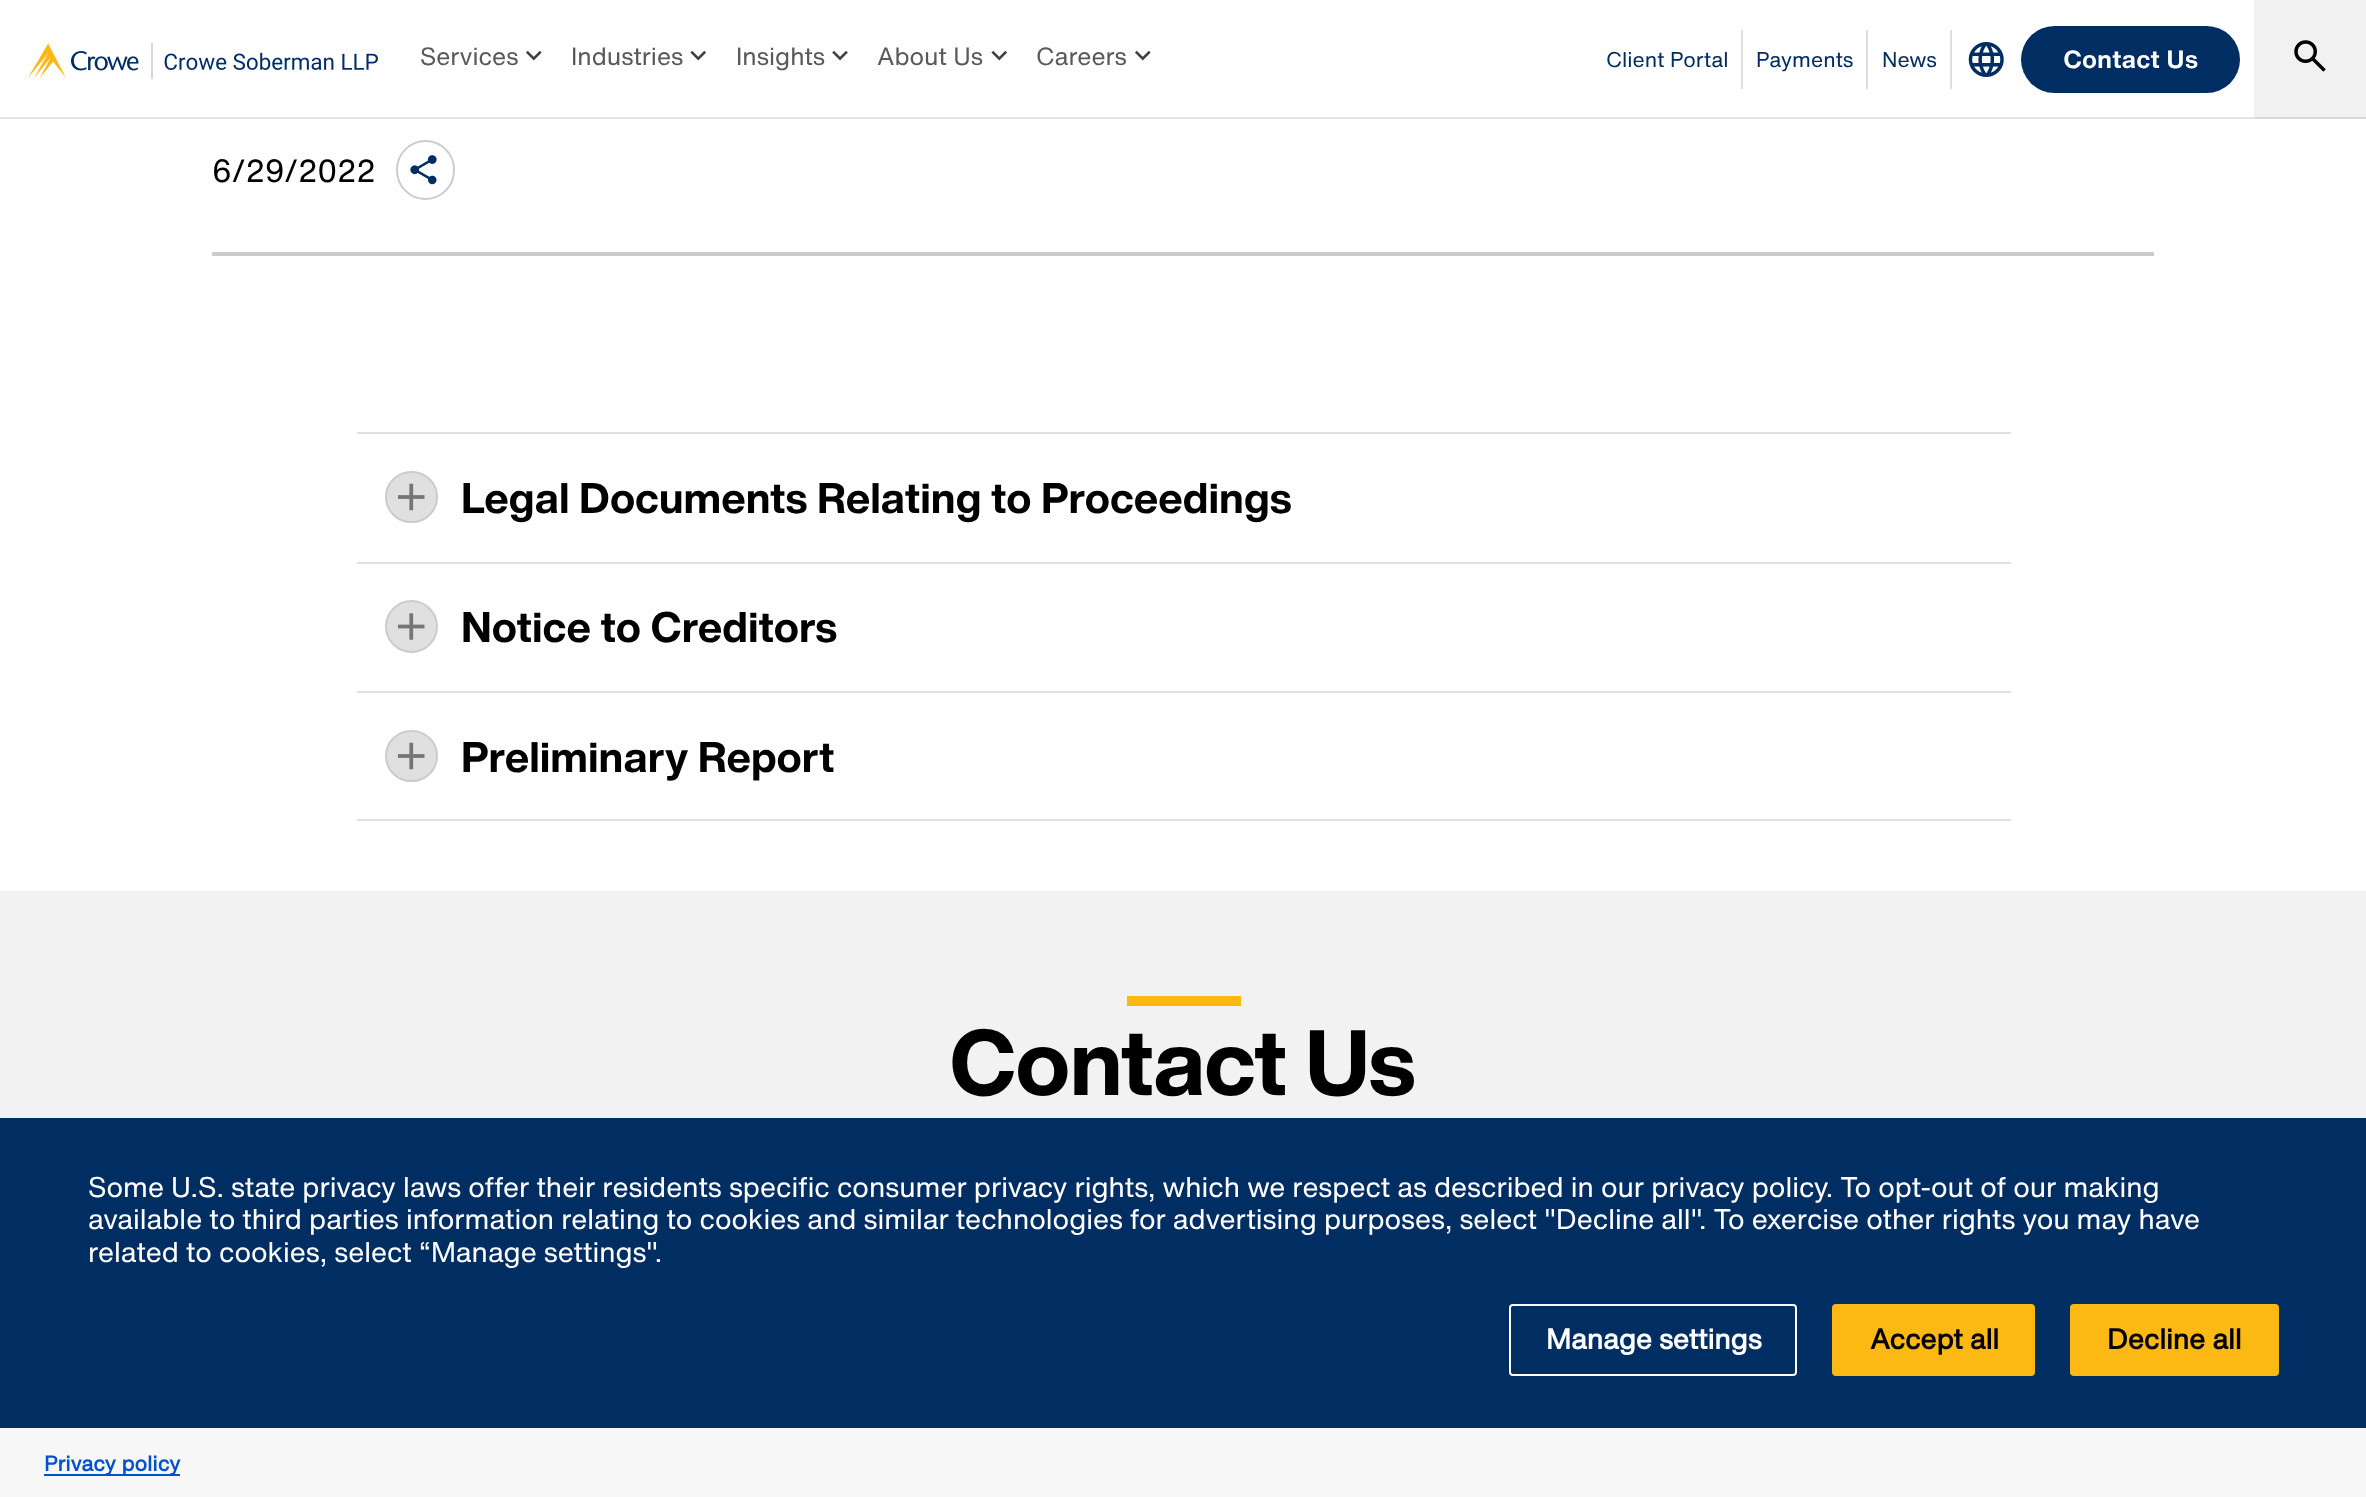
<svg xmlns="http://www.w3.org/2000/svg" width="2366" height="1497">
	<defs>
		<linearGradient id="g1" gradientUnits="userSpaceOnUse" x1="1742" y1="0" x2="1742" y2="119"><stop offset="0.25" stop-color="#FFFFFF" /><stop offset="0.25" stop-color="#DEDEDE" /><stop offset="0.75" stop-color="#DEDEDE" /><stop offset="0.75" stop-color="#FFFFFF" /><stop offset="1" stop-color="#FFFFFF" /></linearGradient>
		<linearGradient id="g2" gradientUnits="userSpaceOnUse" x1="1742" y1="0" x2="1742" y2="119"><stop offset="0.25" stop-color="#E6E6E6" /><stop offset="0.25" stop-color="#C8C8C8" /><stop offset="0.75" stop-color="#C8C8C8" /><stop offset="0.75" stop-color="#E6E6E6" /><stop offset="1" stop-color="#E6E6E6" /></linearGradient>
		<linearGradient id="g3" gradientUnits="userSpaceOnUse" x1="1866" y1="0" x2="1866" y2="119"><stop offset="0.25" stop-color="#FFFFFF" /><stop offset="0.25" stop-color="#DEDEDE" /><stop offset="0.75" stop-color="#DEDEDE" /><stop offset="0.75" stop-color="#FFFFFF" /><stop offset="1" stop-color="#FFFFFF" /></linearGradient>
		<linearGradient id="g4" gradientUnits="userSpaceOnUse" x1="1866" y1="0" x2="1866" y2="119"><stop offset="0.25" stop-color="#E6E6E6" /><stop offset="0.25" stop-color="#C8C8C8" /><stop offset="0.75" stop-color="#C8C8C8" /><stop offset="0.75" stop-color="#E6E6E6" /><stop offset="1" stop-color="#E6E6E6" /></linearGradient>
		<linearGradient id="g5" gradientUnits="userSpaceOnUse" x1="1950" y1="0" x2="1950" y2="119"><stop offset="0.25" stop-color="#FFFFFF" /><stop offset="0.25" stop-color="#DEDEDE" /><stop offset="0.75" stop-color="#DEDEDE" /><stop offset="0.75" stop-color="#FFFFFF" /><stop offset="1" stop-color="#FFFFFF" /></linearGradient>
		<linearGradient id="g6" gradientUnits="userSpaceOnUse" x1="1950" y1="0" x2="1950" y2="119"><stop offset="0.25" stop-color="#E6E6E6" /><stop offset="0.25" stop-color="#C8C8C8" /><stop offset="0.75" stop-color="#C8C8C8" /><stop offset="0.75" stop-color="#E6E6E6" /><stop offset="1" stop-color="#E6E6E6" /></linearGradient>
	</defs>
	<rect width="100%" height="100%" fill="#FFFFFF" />
	<rect x="0" y="117" width="2254" height="2" fill="#E6E6E6" />
	<image x="28" y="43" width="350" height="36" href="assets/img1.png" />
	<text x="420" y="65" font-family="'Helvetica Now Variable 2'" font-size="24.5" fill="#5A5A5A">Services</text>
	<image x="526" y="50" width="16" height="11" href="assets/img2.png" />
	<text x="571" y="65" font-family="'Helvetica Now Variable 2'" font-size="24.5" fill="#5A5A5A">Industries</text>
	<image x="690" y="50" width="16" height="11" href="assets/img3.png" />
	<text x="736" y="65" font-family="'Helvetica Now Variable 2'" font-size="24.5" fill="#5A5A5A">Insights</text>
	<image x="832" y="50" width="16" height="11" href="assets/img4.png" />
	<text x="877" y="65" font-family="'Helvetica Now Variable 2'" font-size="24.5" fill="#5A5A5A">About Us</text>
	<image x="991" y="50" width="16" height="11" href="assets/img3.png" />
	<text x="1036" y="65" font-family="'Helvetica Now Variable 2'" font-size="24.5" fill="#5A5A5A">Careers</text>
	<image x="1135" y="50" width="16" height="11" href="assets/img2.png" />
	<text x="1606" y="67" font-family="'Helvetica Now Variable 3'" font-size="21" fill="#002D62">Client Portal</text>
	<rect x="1741" y="30" width="2" height="89" fill="url(#g1)" />
	<rect x="1741" y="117" width="2" height="2" fill="url(#g2)" />
	<text x="1756" y="67" font-family="'Helvetica Now Variable 3'" font-size="21" fill="#002D62">Payments</text>
	<rect x="1866" y="30" width="2" height="89" fill="url(#g3)" />
	<rect x="1866" y="117" width="2" height="2" fill="url(#g4)" />
	<text x="1882" y="67" font-family="'Helvetica Now Variable 3'" font-size="21" fill="#002D62">News</text>
	<rect x="1950" y="30" width="2" height="89" fill="url(#g5)" />
	<rect x="1950" y="117" width="2" height="2" fill="url(#g6)" />
	<image x="1968" y="42" width="36" height="35" href="assets/img5.png" />
	<rect x="2021" y="26" width="219" height="67" rx="33.5" fill="#002D62" />
	<text x="2063" y="68" font-family="'Helvetica Now Variable 3'" font-size="24.5" font-weight="700" fill="#FFFFFF">Contact Us</text>
	<rect x="2254" y="0" width="112" height="117" fill="#F1F1F1" />
	<rect x="2254" y="117" width="112" height="2" fill="#D9D9D9" />
	<image x="2294" y="40" width="32" height="32" href="assets/img6.png" />
	<text x="212" y="182" font-family="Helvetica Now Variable" font-size="31.5" fill="#000000">6/29/2022</text>
	<rect x="397" y="141" width="57" height="58" rx="28.5" fill="none" stroke="#CCCCCC" stroke-width="2" />
	<image x="410" y="155" width="27" height="30" href="assets/img7.png" />
	<rect x="212" y="252" width="1942" height="4" fill="#CCCCCC" />
	<rect x="357" y="432" width="1654" height="2" fill="#E0E0E0" />
	<rect x="386" y="472" width="51" height="50" rx="25" fill="#E0E0E0" stroke="#CCCCCC" stroke-width="2" />
	<image x="398" y="483" width="27" height="28" href="assets/img8.png" />
	<text x="461" y="513" font-family="Helvetica Now Variable" font-size="42" font-weight="700" fill="#000000">Legal Documents Relating to Proceedings</text>
	<rect x="357" y="562" width="1654" height="2" fill="#E0E0E0" />
	<circle cx="411.5" cy="626.5" r="25.5" fill="#E0E0E0" stroke="#CCCCCC" stroke-width="2" />
	<image x="398" y="613" width="27" height="27" href="assets/img9.png" />
	<text x="461" y="642" font-family="Helvetica Now Variable" font-size="42" font-weight="700" fill="#000000">Notice to Creditors</text>
	<rect x="357" y="691" width="1654" height="2" fill="#E0E0E0" />
	<rect x="357" y="819" width="1654" height="2" fill="#E0E0E0" />
	<rect x="386" y="731" width="51" height="50" rx="25" fill="#E0E0E0" stroke="#CCCCCC" stroke-width="2" />
	<image x="398" y="742" width="27" height="28" href="assets/img8.png" />
	<text x="461" y="772" font-family="Helvetica Now Variable" font-size="42" font-weight="700" fill="#000000">Preliminary Report</text>
	<rect x="0" y="891" width="2366" height="227" fill="#F2F2F2" />
	<rect x="1127" y="996" width="114" height="10" fill="#FDB913" />
	<text x="950" y="1095" font-family="'Helvetica Now Variable 2'" font-size="91" font-weight="700" fill="#000000">Contact Us</text>
	<rect x="0" y="1118" width="2366" height="310" fill="#002D62" />
	<g font-family="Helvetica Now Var" font-size="28" fill="#FFFFFF">
		<text x="88" y="1197">Some U.S. state privacy laws offer their residents specific consumer privacy rights, which we respect as described in our privacy policy. To opt-out of our making</text>
		<text x="88" y="1229">available to third parties information relating to cookies and similar technologies for advertising purposes, select "Decline all". To exercise other rights you may have</text>
		<text x="88" y="1262">related to cookies, select “Manage settings".</text>
	</g>
	<rect x="1510" y="1305" width="286" height="70" rx="3" fill="none" stroke="#FFFFFF" stroke-width="2" />
	<text x="1546" y="1349" font-family="Helvetica Now Var" font-size="28" font-weight="700" fill="#FFFFFF">Manage settings</text>
	<rect x="1833" y="1305" width="201" height="70" rx="3" fill="#FDB913" stroke="#FDB913" stroke-width="2" />
	<text x="1870" y="1349" font-family="Helvetica Now Var" font-size="28" font-weight="700" fill="#000000">Accept all</text>
	<rect x="2071" y="1305" width="207" height="70" rx="3" fill="#FDB913" stroke="#FDB913" stroke-width="2" />
	<text x="2107" y="1349" font-family="Helvetica Now Var" font-size="28" font-weight="700" fill="#000000">Decline all</text>
	<rect x="0" y="1428" width="2366" height="69" fill="#F7F7F7" />
	<rect x="44" y="1474" width="136" height="2" fill="#0052CC" />
	<text x="44" y="1471" font-family="'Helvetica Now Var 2'" font-size="21" font-weight="700" fill="#0052CC">Privacy policy</text>
</svg>
